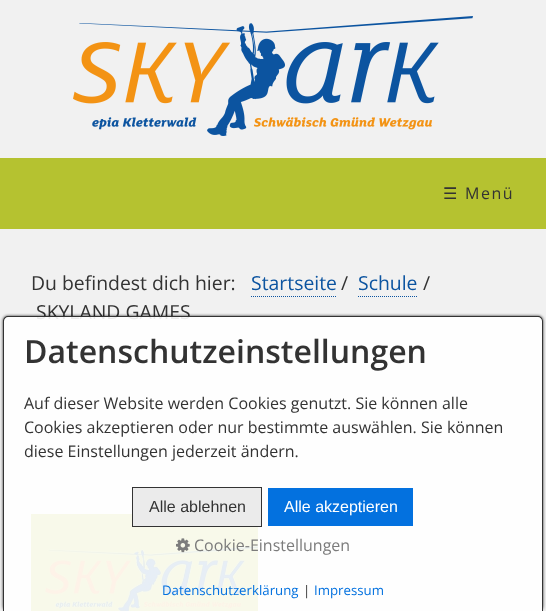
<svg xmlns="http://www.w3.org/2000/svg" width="546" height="611">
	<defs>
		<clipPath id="clip1"><path d="M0 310H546V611H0ZM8 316H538C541 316 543 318 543 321V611H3V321C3 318 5 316 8 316Z" clip-rule="evenodd" /></clipPath>
	</defs>
	<rect width="100%" height="100%" fill="#F1F1F1" />
	<image x="73" y="16" width="400" height="120" href="assets/img1.png" />
	<rect x="0" y="158" width="546" height="71" fill="#B5C230" />
	<text x="443" y="199" font-family="DejaVu Sans" font-size="16" letter-spacing="1.5" fill="#333333">☰</text>
	<text x="465" y="199" font-family="Open Sans" font-size="16" letter-spacing="1.5" fill="#333333">Menü</text>
	<text x="31" y="290" font-family="Open Sans" font-size="19.4" fill="#333333">Du befindest dich hier:</text>
	<text x="251" y="290" font-family="Open Sans" font-size="19.4" fill="#0C54A0">Startseite</text>
	<path d="M251 296.5H336" fill="none" stroke="#0C54A0" stroke-dasharray="1 1" />
	<text x="341" y="290" font-family="Open Sans" font-size="19.4" fill="#333333">/</text>
	<text x="358" y="290" font-family="Open Sans" font-size="19.4" fill="#0C54A0">Schule</text>
	<path d="M358 296.5H418" fill="none" stroke="#0C54A0" stroke-dasharray="1 1" />
	<g font-family="Open Sans" font-size="19.4" fill="#333333">
		<text x="423" y="290">/</text>
		<text x="36" y="319">SKYLAND GAMES</text>
	</g>
	<image x="31" y="514" width="227" height="97" href="assets/img2.png" />
	<g clip-path="url(#clip1)">
		<rect x="3" y="316" width="540" height="295" rx="5" fill="#000000" fill-opacity="0.8" filter="blur(1.5px)" />
	</g>
	<path d="M8 316H538C541 316 543 318 543 321V611H3V321C3 318 5 316 8 316Z" fill="#FFFFFF" fill-opacity="0.9" />
	<path d="M8 316H538C541 316 543 318 543 321V611H3V321C3 318 5 316 8 316ZM8 317H538C540 317 542 319 542 321V611H4V321C4 319 6 317 8 317Z" fill="#333333" fill-rule="evenodd" />
	<text x="24" y="363" font-family="Open Sans" font-size="32" font-weight="600" fill="#333333">Datenschutzeinstellungen</text>
	<g font-family="Open Sans" font-size="16" fill="#333333">
		<text x="24" y="409">Auf dieser Website werden Cookies genutzt. Sie können alle</text>
		<text x="24" y="433">Cookies akzeptieren oder nur bestimmte auswählen. Sie können</text>
		<text x="24" y="457">diese Einstellungen jederzeit ändern.</text>
	</g>
	<rect x="132.5" y="487.5" width="129" height="39" fill="#EBEBEB" stroke="#333333" />
	<text x="149" y="512" font-family="Liberation Sans" font-size="16" fill="#333333">Alle ablehnen</text>
	<rect x="268" y="488" width="145" height="38" fill="#0371DF" />
	<text x="284" y="512" font-family="Liberation Sans" font-size="16" fill="#FFFFFF">Alle akzeptieren</text>
	<image x="176" y="538" width="14" height="15" href="assets/img3.png" />
	<text x="194" y="551" font-family="Open Sans" font-size="16" fill="#7C7C7C">Cookie-Einstellungen</text>
	<text x="162" y="595" font-family="Open Sans" font-size="13.25" fill="#0371DF">Datenschutzerklärung</text>
	<text x="303" y="595" font-family="Open Sans" font-size="13.25" fill="#333333">|</text>
	<text x="314" y="595" font-family="Open Sans" font-size="13.25" fill="#0371DF">Impressum</text>
</svg>
